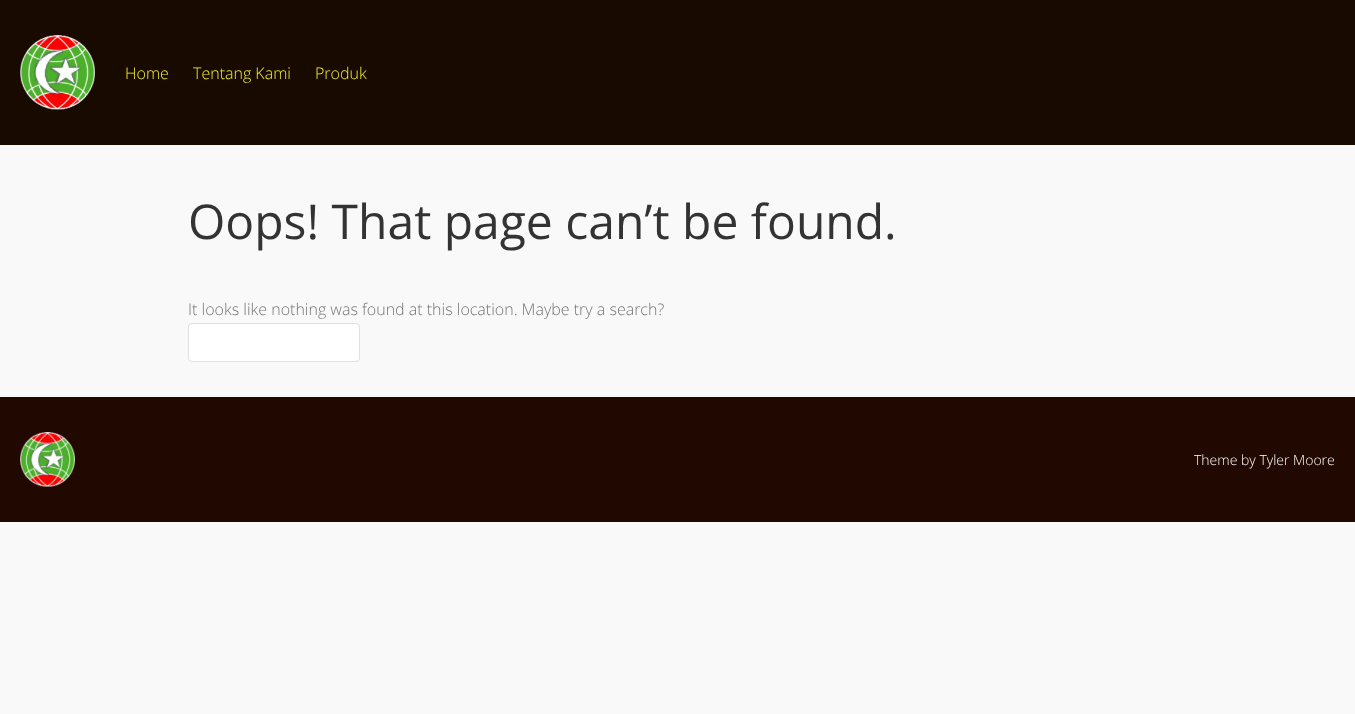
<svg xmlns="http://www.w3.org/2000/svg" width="1355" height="714">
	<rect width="100%" height="100%" fill="#F9F9F9" />
	<rect x="0" y="0" width="1355" height="145" fill="#190A00" />
	<image x="20" y="35" width="75" height="75" href="assets/img1.png" />
	<g font-family="Open Sans" font-size="16" font-weight="300" fill="#EEEE22">
		<text x="125" y="79">Home</text>
		<text x="193" y="79">Tentang Kami</text>
		<text x="315" y="79">Produk</text>
	</g>
	<text x="188" y="239" font-family="Open Sans" font-size="48" fill="#333333">Oops! That page can’t be found.</text>
	<text x="188" y="315" font-family="Open Sans" font-size="16" font-weight="300" fill="#757575">It looks like nothing was found at this location. Maybe try a search?</text>
	<rect x="188.5" y="323.5" width="171" height="38" rx="3.5" fill="#FFFFFF" stroke="#E0E0E0" />
	<rect x="0" y="397" width="1355" height="125" fill="#210800" />
	<image x="20" y="432" width="55" height="55" href="assets/img2.png" />
	<text x="1194" y="465" font-family="Open Sans" font-size="14" font-weight="300" fill="#FFFFFF">Theme by Tyler Moore</text>
</svg>
